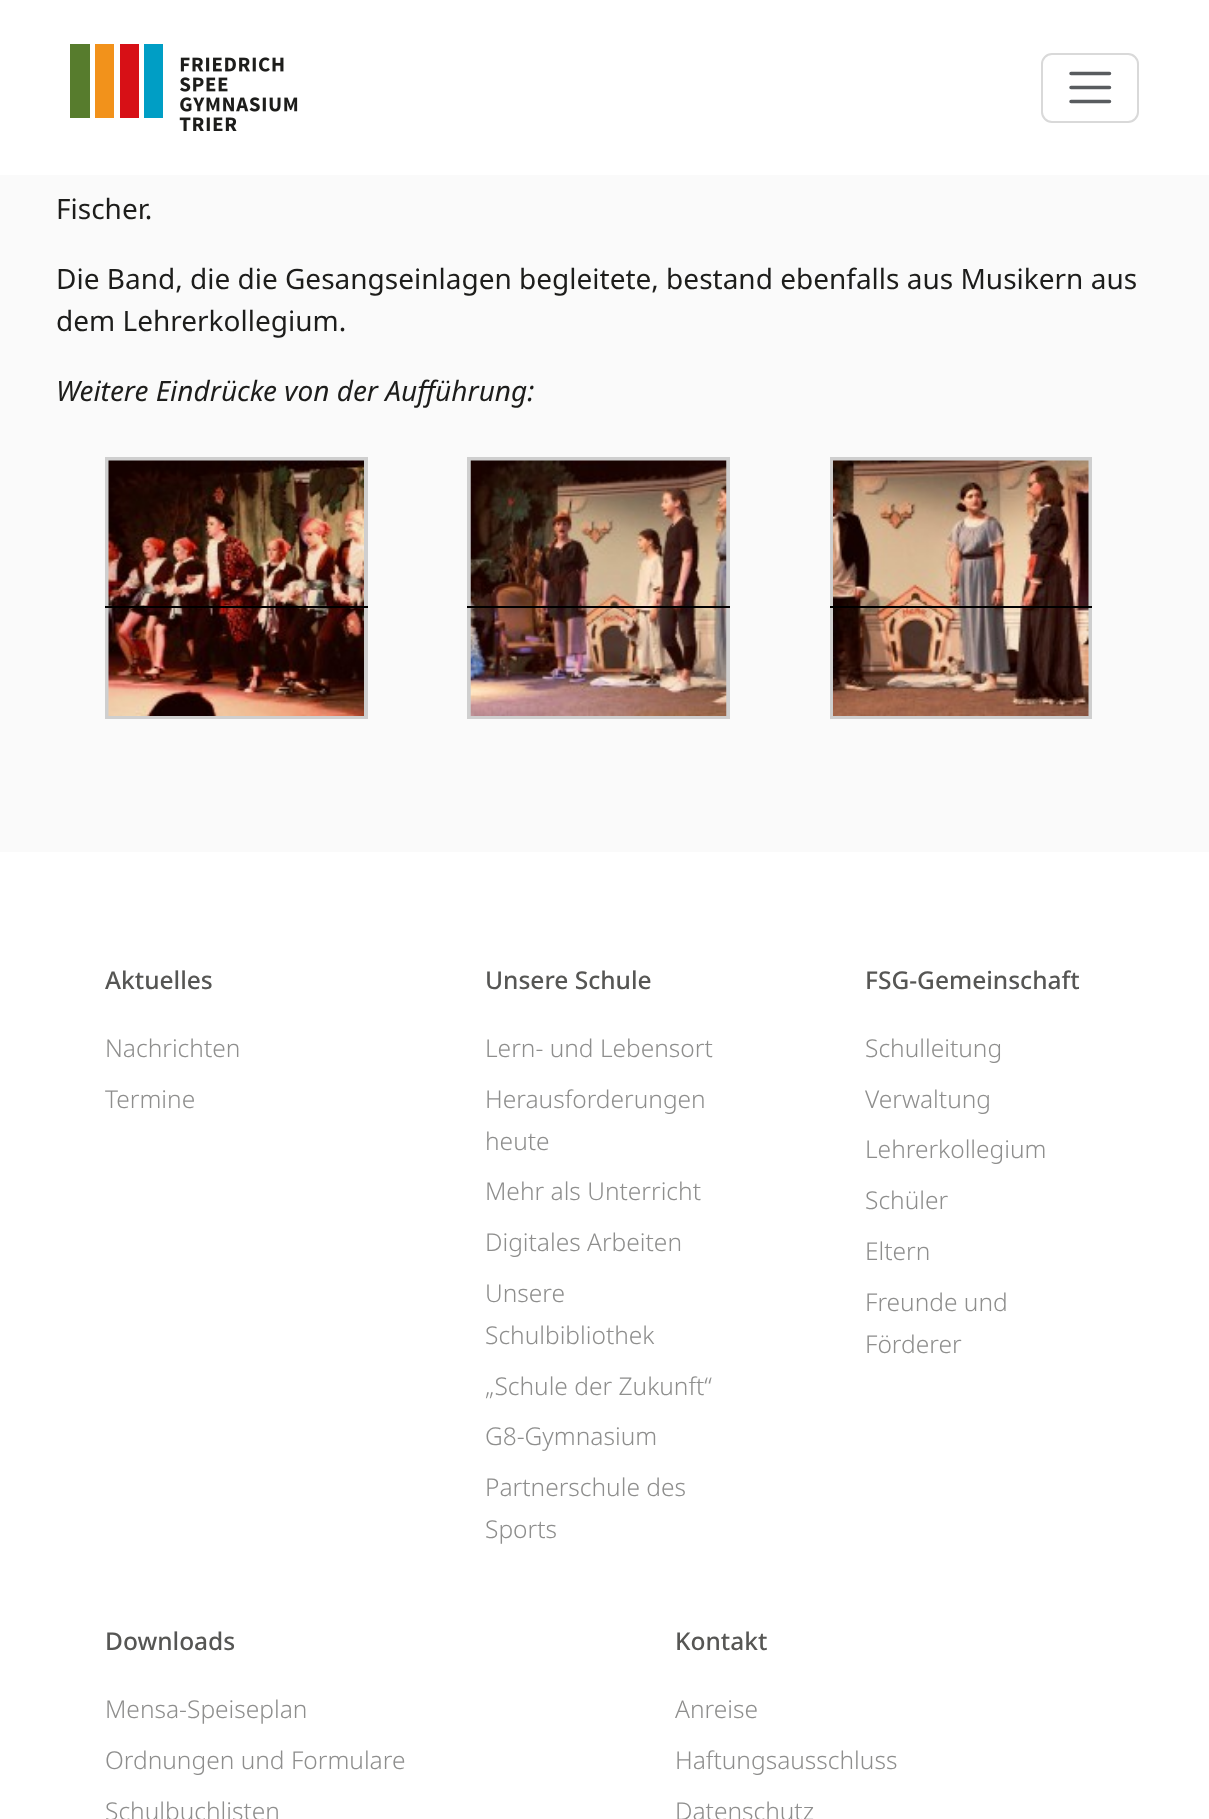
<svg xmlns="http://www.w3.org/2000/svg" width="1209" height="1819">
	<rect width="100%" height="100%" fill="#FAFAFA" />
	<rect x="0" y="0" width="1209" height="175" fill="#FFFFFF" />
	<image x="70" y="44" width="228" height="87" href="assets/img1.png" />
	<rect x="1042" y="54" width="96" height="68" rx="10" fill="none" stroke="#D9D9D9" stroke-width="2" />
	<path d="M1071 73.5H1109.5M1071 87.5H1109.5M1071 101.5H1109.5" fill="none" stroke="#595C5F" stroke-width="3.5" stroke-linecap="round" />
	<g font-family="Noto Sans" font-size="28" fill="#1D1D1B">
		<text x="56" y="219">Fischer.</text>
		<text x="56" y="289">Die Band, die die Gesangseinlagen begleitete, bestand ebenfalls aus Musikern aus</text>
		<text x="56" y="331">dem Lehrerkollegium.</text>
	</g>
	<text x="56" y="401" font-family="Noto Sans" font-size="28" font-style="italic" fill="#1D1D1B">Weitere Eindrücke von der Aufführung:</text>
	<rect x="107" y="459" width="259" height="258" fill="none" stroke="#CFCFCF" stroke-width="4" />
	<image x="108" y="460" width="256" height="256" href="assets/img2.png" />
	<rect x="105" y="606" width="263" height="2" fill="#000000" />
	<rect x="469" y="459" width="259" height="258" fill="none" stroke="#CFCFCF" stroke-width="4" />
	<image x="470" y="460" width="257" height="256" href="assets/img3.png" />
	<rect x="467" y="606" width="263" height="2" fill="#000000" />
	<rect x="832" y="459" width="258" height="258" fill="none" stroke="#CFCFCF" stroke-width="4" />
	<image x="833" y="460" width="256" height="256" href="assets/img4.png" />
	<rect x="830" y="606" width="262" height="2" fill="#000000" />
	<rect x="0" y="852" width="1209" height="967" fill="#FFFFFF" />
	<text x="105" y="989" font-family="Noto Sans" font-size="24.5" font-weight="500" fill="#565654">Aktuelles</text>
	<g font-family="Noto Sans" font-size="24.5" font-weight="300" fill="#8E8E8D">
		<text x="105" y="1057">Nachrichten</text>
		<text x="105" y="1108">Termine</text>
	</g>
	<text x="485" y="989" font-family="Noto Sans" font-size="24.5" font-weight="500" fill="#565654">Unsere Schule</text>
	<g font-family="Noto Sans" font-size="24.5" font-weight="300" fill="#8E8E8D">
		<text x="485" y="1057">Lern- und Lebensort</text>
		<text x="485" y="1108">Herausforderungen</text>
		<text x="485" y="1150">heute</text>
		<text x="485" y="1200">Mehr als Unterricht</text>
		<text x="485" y="1251">Digitales Arbeiten</text>
		<text x="485" y="1302">Unsere</text>
		<text x="485" y="1344">Schulbibliothek</text>
		<text x="485" y="1395">„Schule der Zukunft“</text>
		<text x="485" y="1445">G8-Gymnasium</text>
		<text x="485" y="1496">Partnerschule des</text>
		<text x="485" y="1538">Sports</text>
	</g>
	<text x="865" y="989" font-family="Noto Sans" font-size="24.5" font-weight="500" fill="#565654">FSG-Gemeinschaft</text>
	<g font-family="Noto Sans" font-size="24.5" font-weight="300" fill="#8E8E8D">
		<text x="865" y="1057">Schulleitung</text>
		<text x="865" y="1108">Verwaltung</text>
		<text x="865" y="1158">Lehrerkollegium</text>
		<text x="865" y="1209">Schüler</text>
		<text x="865" y="1260">Eltern</text>
		<text x="865" y="1311">Freunde und</text>
		<text x="865" y="1353">Förderer</text>
	</g>
	<text x="105" y="1650" font-family="Noto Sans" font-size="24.5" font-weight="500" fill="#565654">Downloads</text>
	<g font-family="Noto Sans" font-size="24.5" font-weight="300" fill="#8E8E8D">
		<text x="105" y="1718">Mensa-Speiseplan</text>
		<text x="105" y="1769">Ordnungen und Formulare</text>
		<text x="105" y="1820">Schulbuchlisten</text>
	</g>
	<text x="675" y="1650" font-family="Noto Sans" font-size="24.5" font-weight="500" fill="#565654">Kontakt</text>
	<g font-family="Noto Sans" font-size="24.5" font-weight="300" fill="#8E8E8D">
		<text x="675" y="1718">Anreise</text>
		<text x="675" y="1769">Haftungsausschluss</text>
		<text x="675" y="1820">Datenschutz</text>
	</g>
</svg>
